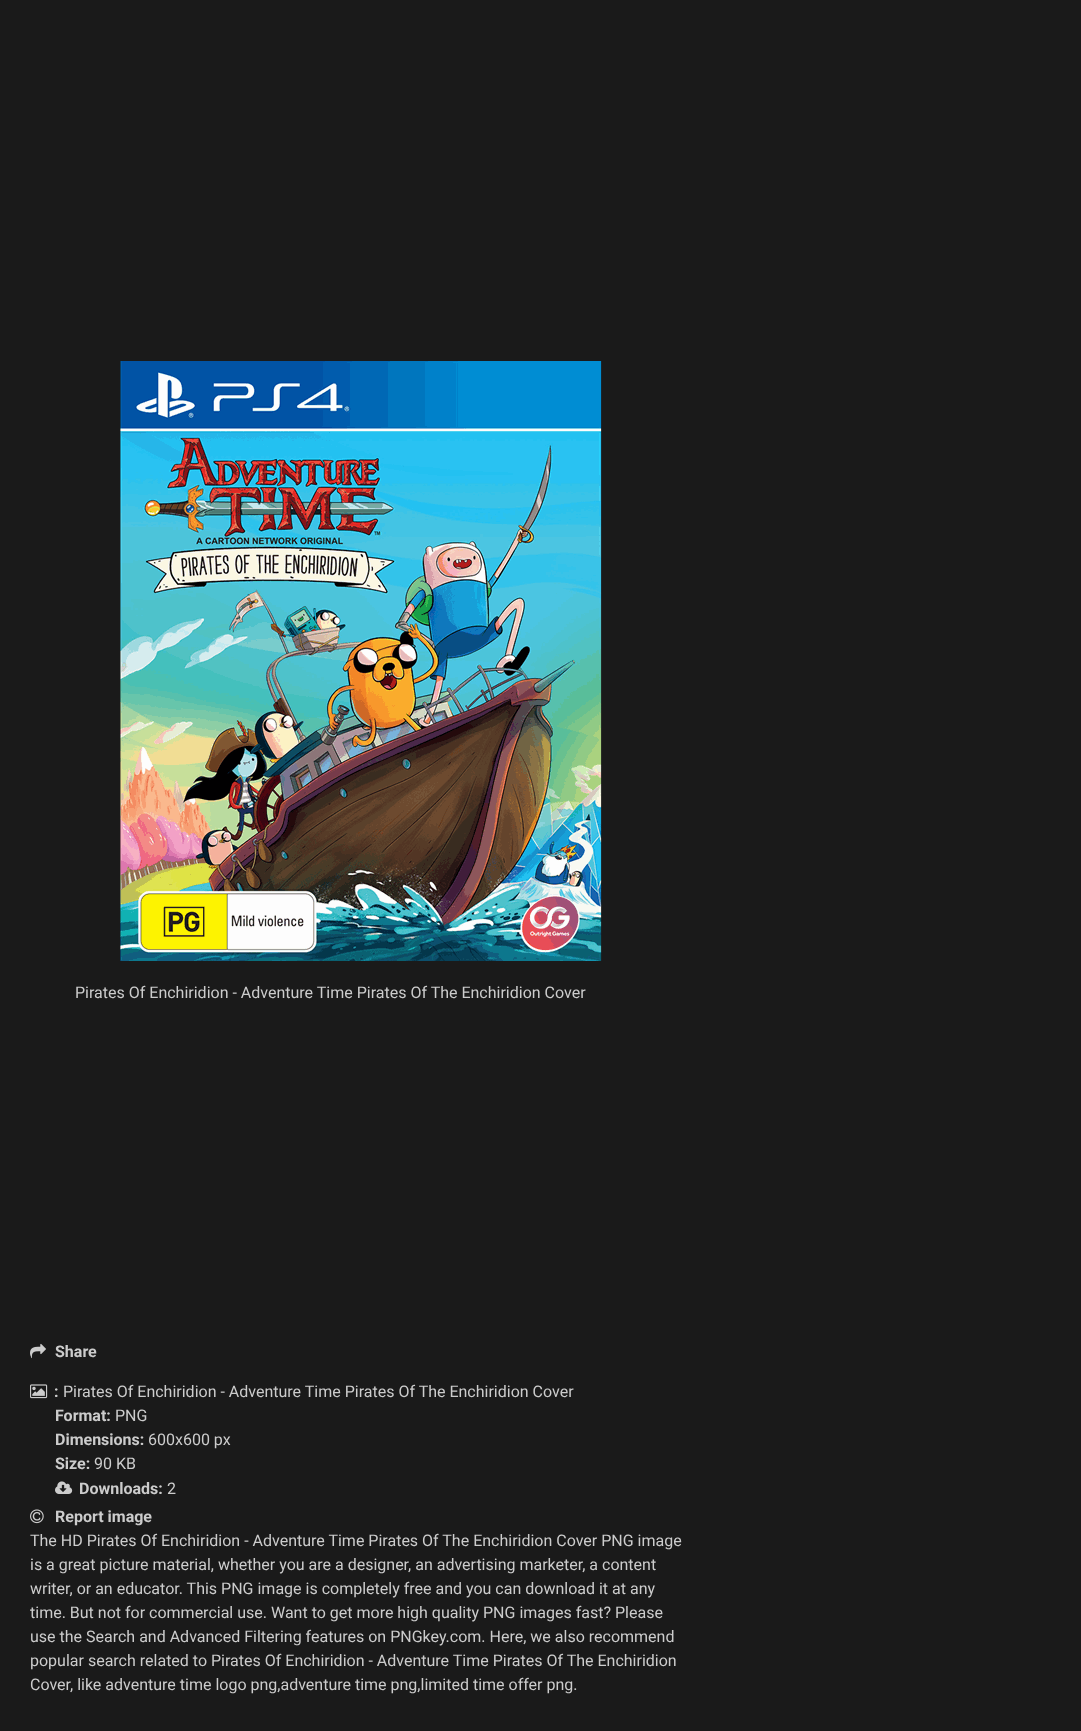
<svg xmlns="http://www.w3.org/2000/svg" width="1081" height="1731">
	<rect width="100%" height="100%" fill="#1A1A1A" />
	<image x="120" y="361" width="482" height="600" href="assets/img1.png" />
	<text x="75" y="998" font-family="Roboto" font-size="16" fill="#CCCCCC">Pirates Of Enchiridion - Adventure Time Pirates Of The Enchiridion Cover</text>
	<image x="30" y="1343" width="16" height="16" href="assets/img2.png" />
	<text x="55" y="1357" font-family="Roboto" font-size="16" font-weight="700" fill="#CCCCCC">Share</text>
	<image x="30" y="1384" width="18" height="15" href="assets/img3.png" />
	<text x="54" y="1397" font-family="Roboto" font-size="16" font-weight="700" fill="#CCCCCC">:</text>
	<text x="63" y="1397" font-family="Roboto" font-size="16" fill="#CCCCCC">Pirates Of Enchiridion - Adventure Time Pirates Of The Enchiridion Cover</text>
	<text x="55" y="1421" font-family="Roboto" font-size="16" font-weight="700" fill="#CCCCCC">Format:</text>
	<text x="115" y="1421" font-family="Roboto" font-size="16" fill="#CCCCCC">PNG</text>
	<text x="55" y="1445" font-family="Roboto" font-size="16" font-weight="700" fill="#CCCCCC">Dimensions:</text>
	<text x="148" y="1445" font-family="Roboto" font-size="16" fill="#CCCCCC">600x600 px</text>
	<text x="55" y="1469" font-family="Roboto" font-size="16" font-weight="700" fill="#CCCCCC">Size:</text>
	<text x="94" y="1469" font-family="Roboto" font-size="16" fill="#CCCCCC">90 KB</text>
	<image x="55" y="1481" width="18" height="13" href="assets/img4.png" />
	<text x="79" y="1494" font-family="Roboto" font-size="16" font-weight="700" fill="#CCCCCC">Downloads:</text>
	<text x="167" y="1494" font-family="Roboto" font-size="16" fill="#CCCCCC">2</text>
	<image x="30" y="1509" width="14" height="15" href="assets/img5.png" />
	<text x="55" y="1522" font-family="Roboto" font-size="16" font-weight="700" fill="#CCCCCC">Report image</text>
	<g font-family="Roboto" font-size="16" fill="#CCCCCC">
		<text x="30" y="1546">The HD Pirates Of Enchiridion - Adventure Time Pirates Of The Enchiridion Cover PNG image</text>
		<text x="30" y="1570">is a great picture material, whether you are a designer, an advertising marketer, a content</text>
		<text x="30" y="1594">writer, or an educator. This PNG image is completely free and you can download it at any</text>
		<text x="30" y="1618">time. But not for commercial use. Want to get more high quality PNG images fast? Please</text>
		<text x="30" y="1642">use the Search and Advanced Filtering features on PNGkey.com. Here, we also recommend</text>
		<text x="30" y="1666">popular search related to Pirates Of Enchiridion - Adventure Time Pirates Of The Enchiridion</text>
		<text x="30" y="1690">Cover, like adventure time logo png,adventure time png,limited time offer png.</text>
	</g>
</svg>
